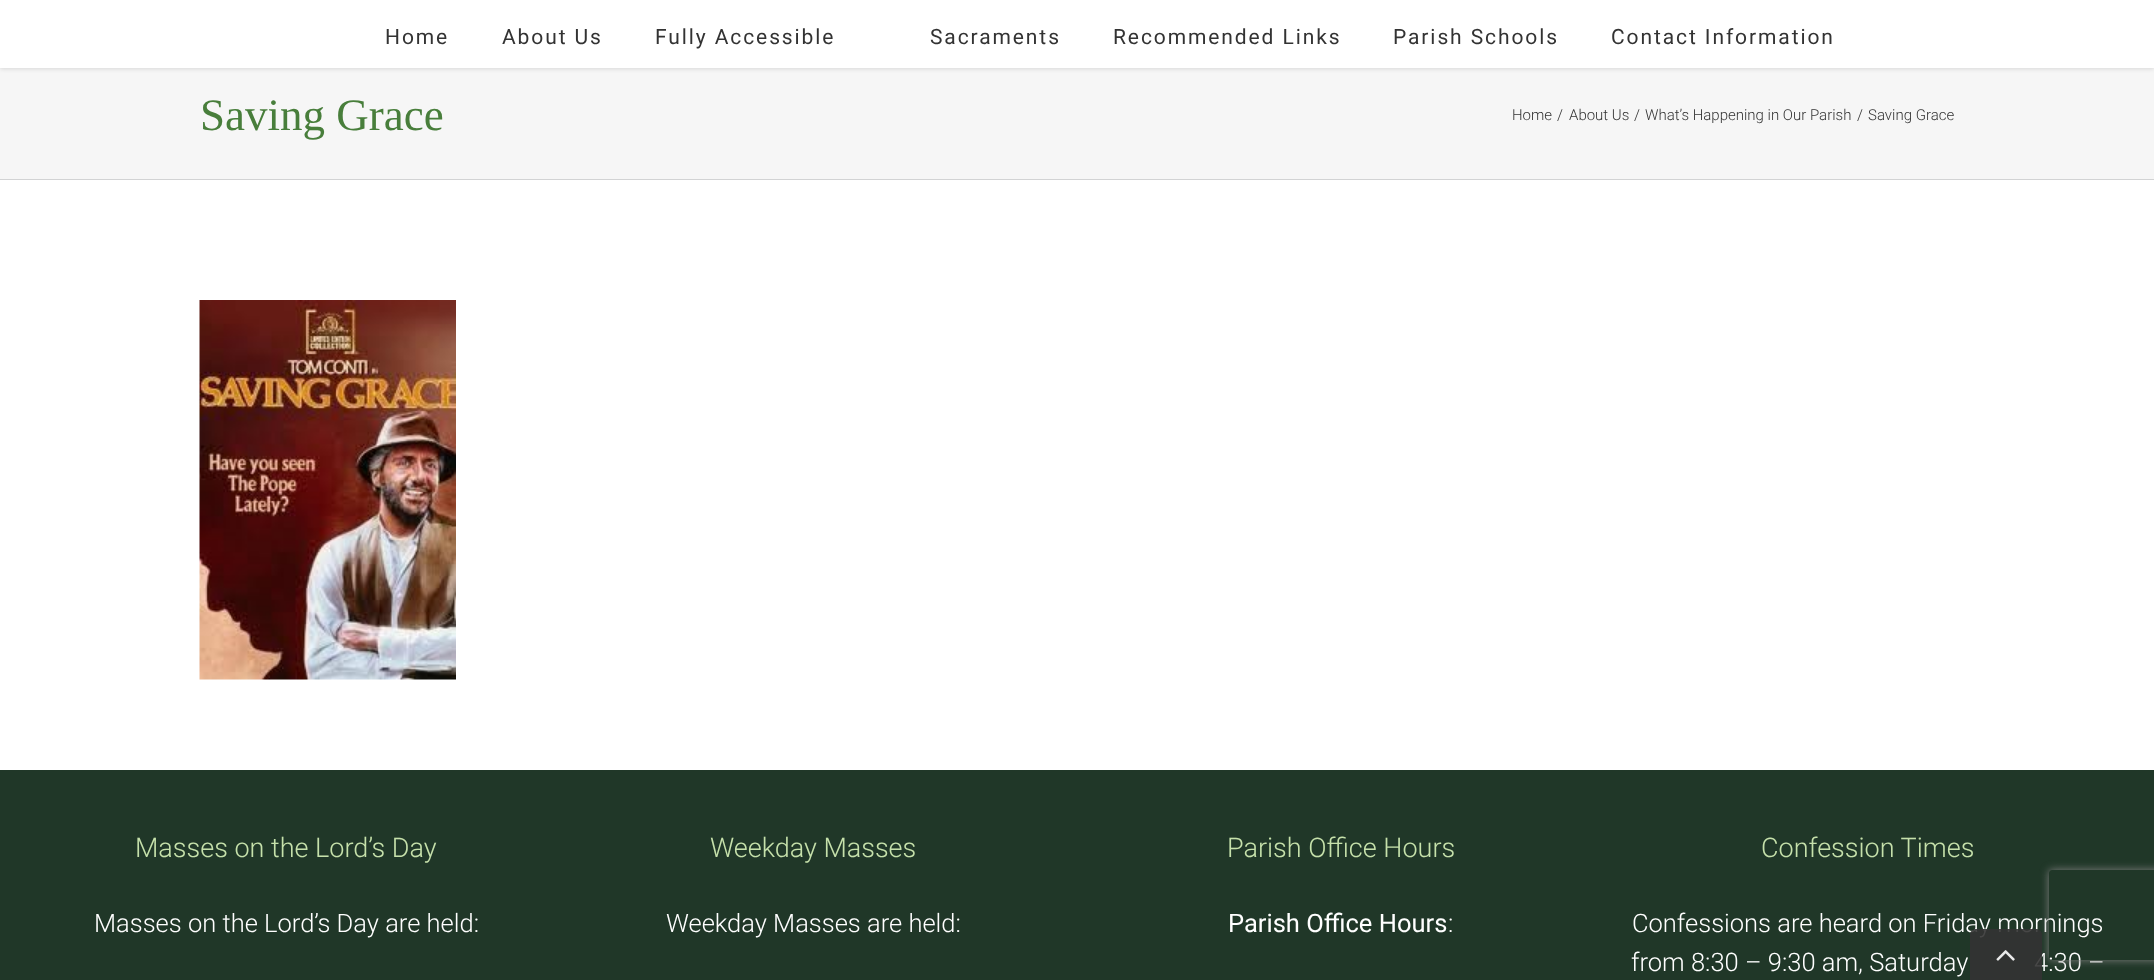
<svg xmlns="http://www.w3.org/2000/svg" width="2154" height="980">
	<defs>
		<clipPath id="clip1"><path d="M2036 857H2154V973H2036ZM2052 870H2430C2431.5 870 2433 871.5 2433 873V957C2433 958.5 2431.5 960 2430 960H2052C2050.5 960 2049 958.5 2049 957V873C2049 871.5 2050.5 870 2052 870Z" clip-rule="evenodd" /></clipPath>
	</defs>
	<rect width="100%" height="100%" fill="#F6F6F6" />
	<rect x="0" y="2" width="2154" height="67" fill="#000000" fill-opacity="0.12" filter="blur(2px)" />
	<rect x="0" y="0" width="2154" height="68" fill="#FFFFFF" />
	<g font-family="Roboto" font-size="21" letter-spacing="1.9" fill="#333333">
		<text x="385" y="44">Home</text>
		<text x="502" y="44">About Us</text>
		<text x="655" y="44">Fully Accessible</text>
		<text x="930" y="44">Sacraments</text>
		<text x="1113" y="44">Recommended Links</text>
		<text x="1393" y="44">Parish Schools</text>
		<text x="1611" y="44">Contact Information</text>
	</g>
	<rect x="0" y="179" width="2154" height="1" fill="#D2D3D4" />
	<text x="200" y="130" font-family="Liberation Serif" font-size="45" fill="#487E3B">Saving Grace</text>
	<g font-family="Roboto" font-size="15" font-weight="300" fill="#333333">
		<text x="1512" y="120">Home</text>
		<text x="1557" y="120">/</text>
		<text x="1569" y="120">About Us</text>
		<text x="1634" y="120">/</text>
		<text x="1645" y="120">What’s Happening in Our Parish</text>
		<text x="1857" y="120">/</text>
		<text x="1868" y="120">Saving Grace</text>
	</g>
	<rect x="0" y="180" width="2154" height="590" fill="#FFFFFF" />
	<image x="199" y="300" width="257" height="380" href="assets/img1.png" />
	<rect x="0" y="770" width="2154" height="210" fill="#203728" />
	<text x="135" y="857" font-family="Roboto" font-size="27" font-weight="300" fill="#C6E1AB">Masses on the Lord’s Day</text>
	<text x="94" y="932" font-family="Roboto" font-size="25.5" font-weight="300" fill="#FFFFFF">Masses on the Lord’s Day are held:</text>
	<text x="710" y="857" font-family="Roboto" font-size="27" font-weight="300" fill="#C6E1AB">Weekday Masses</text>
	<text x="666" y="932" font-family="Roboto" font-size="25.5" font-weight="300" fill="#FFFFFF">Weekday Masses are held:</text>
	<text x="1227" y="857" font-family="Roboto" font-size="27" font-weight="300" fill="#C6E1AB">Parish Office Hours</text>
	<text x="1228" y="932" font-family="Roboto" font-size="25.5" fill="#FFFFFF">Parish Office Hours</text>
	<text x="1448" y="932" font-family="Roboto" font-size="25.5" font-weight="300" fill="#FFFFFF">:</text>
	<text x="1761" y="857" font-family="Roboto" font-size="27" font-weight="300" fill="#C6E1AB">Confession Times</text>
	<g font-family="Roboto" font-size="25.5" font-weight="300" fill="#FFFFFF">
		<text x="1632" y="932">Confessions are heard on Friday mornings</text>
		<text x="1631" y="971">from 8:30 – 9:30 am, Saturday</text>
		<text x="2034" y="971">4:30 –</text>
	</g>
	<g clip-path="url(#clip1)">
		<rect x="2049" y="870" width="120" height="90" rx="3" fill="#808080" filter="blur(4px)" />
	</g>
	<path d="M1976 929H2036C2039.5 929 2042 931.5 2042 935V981H1970V935C1970 931.5 1972.5 929 1976 929Z" fill="#333333" fill-opacity="0.9" />
	<image x="1996" y="950" width="19" height="11" href="assets/img2.png" />
</svg>
